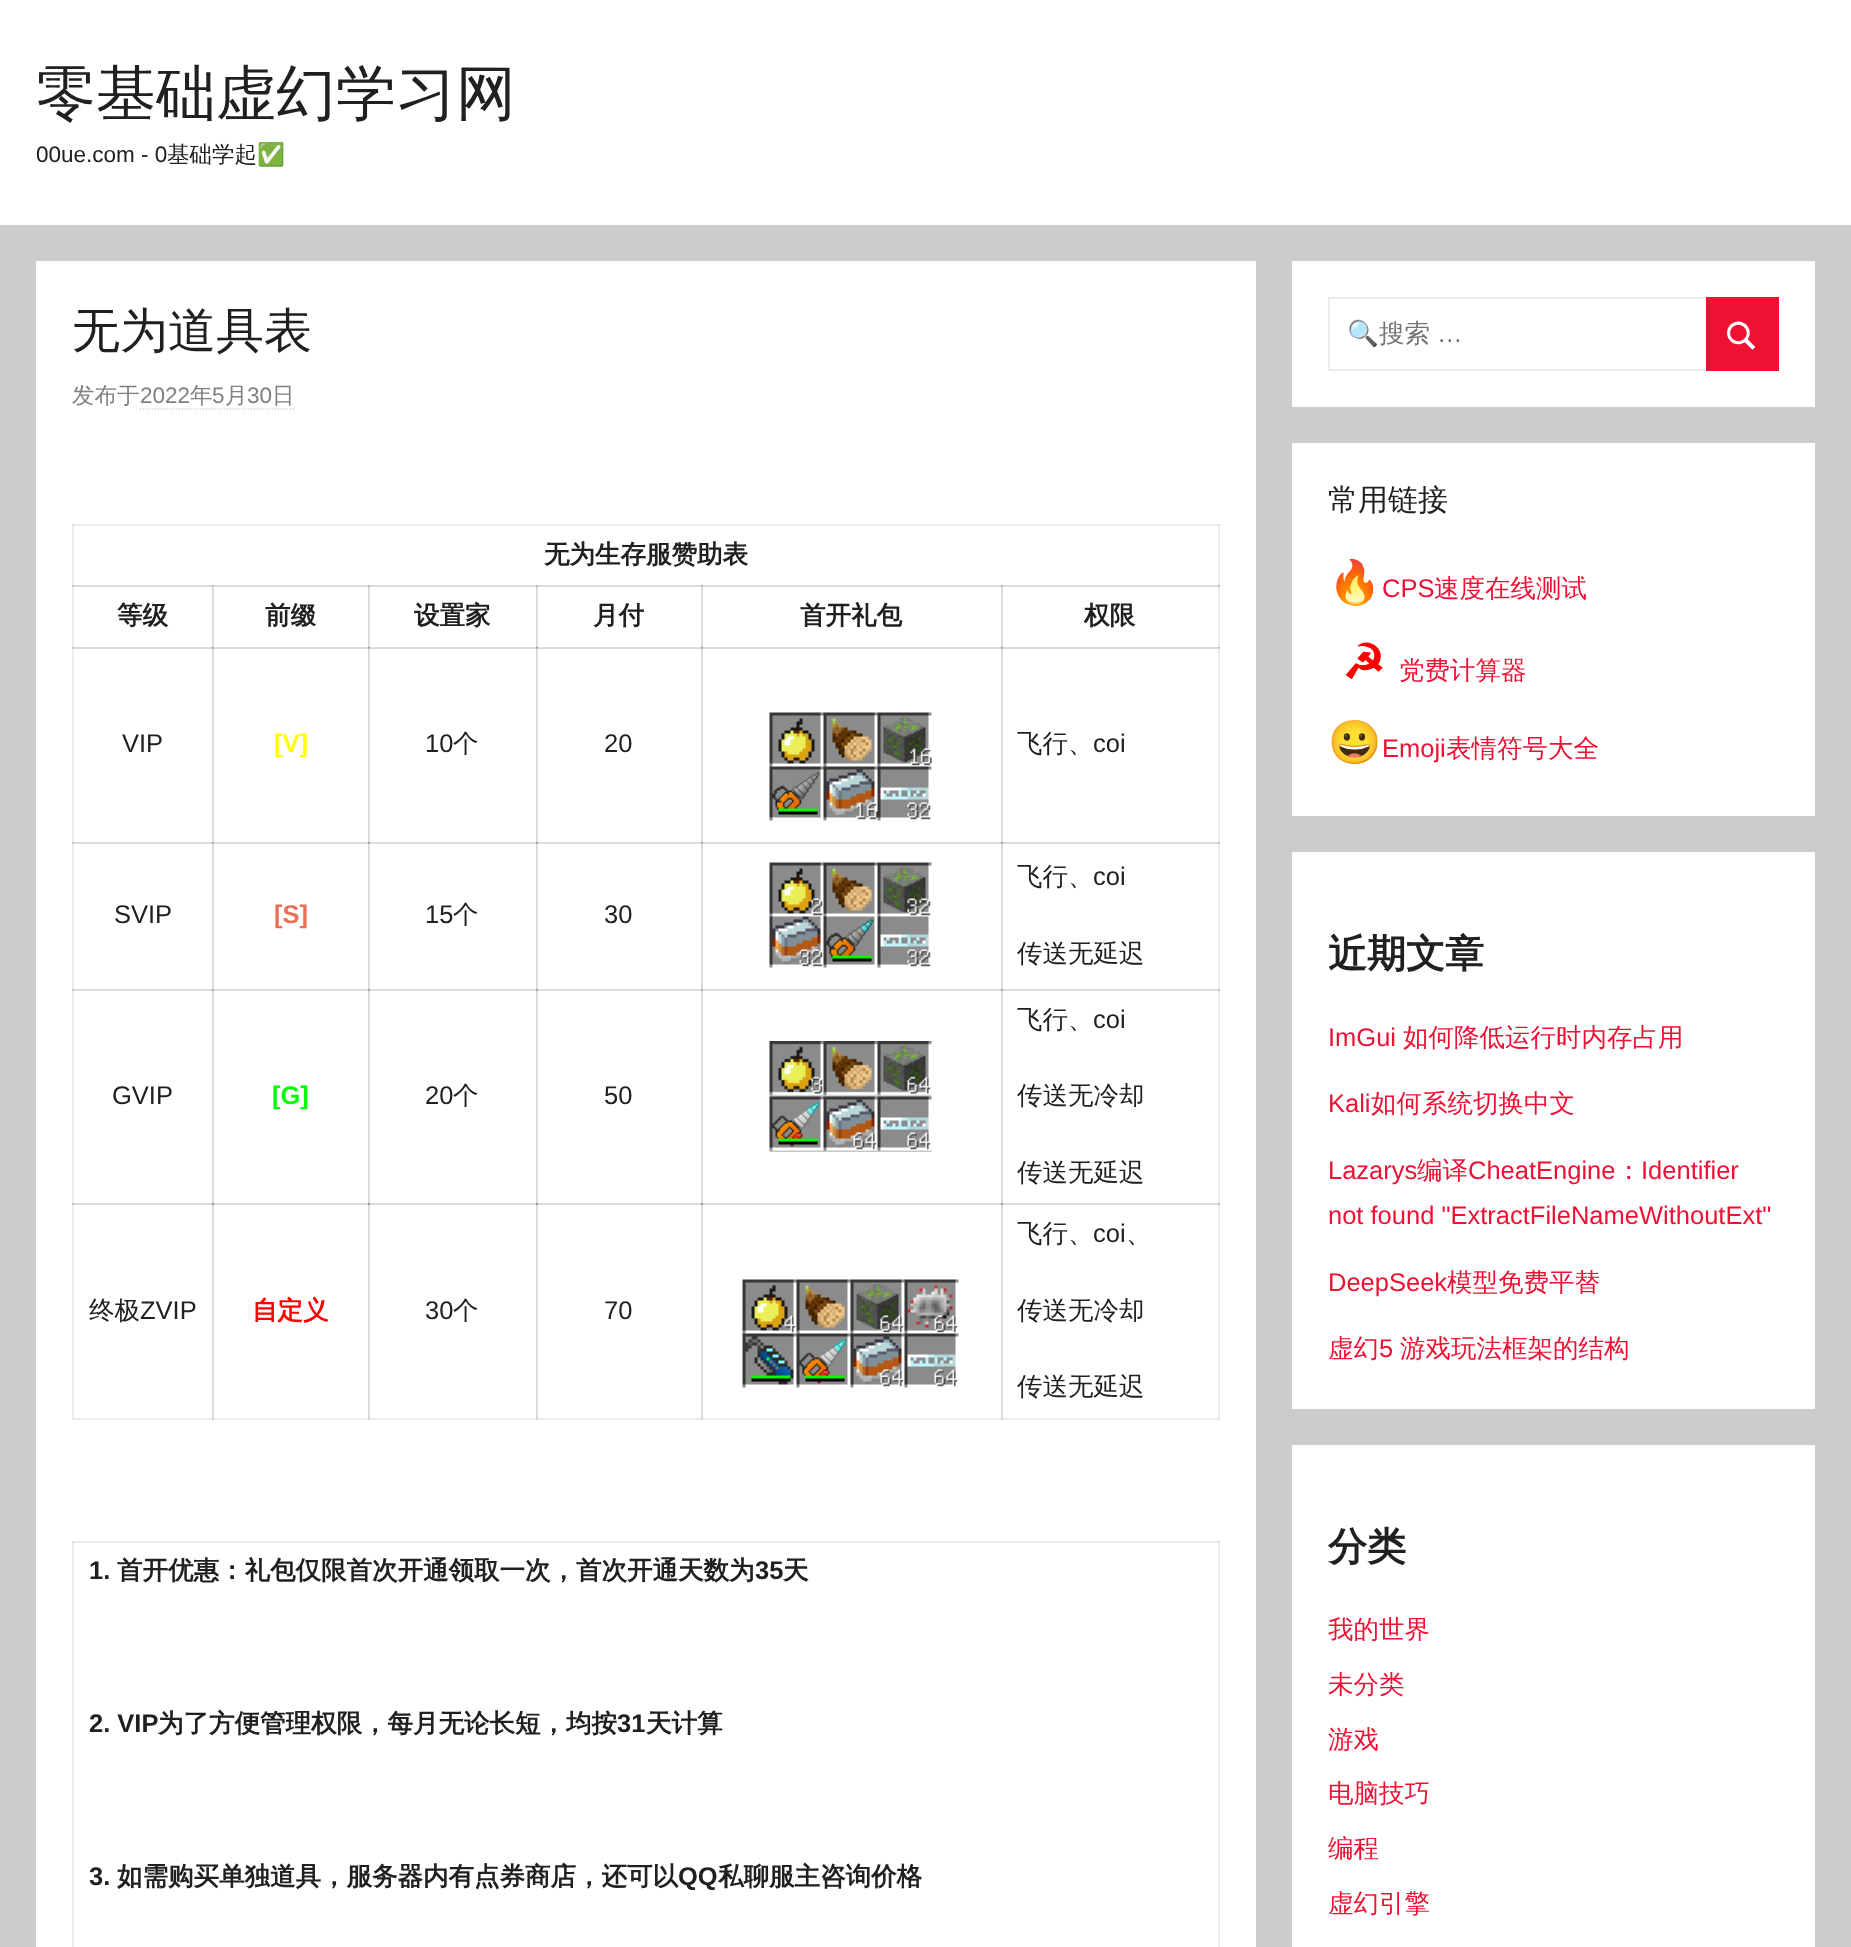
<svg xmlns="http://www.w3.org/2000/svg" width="1851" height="1947">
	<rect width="100%" height="100%" fill="#CCCCCC" />
	<rect x="0" y="0" width="1851" height="225" fill="#FFFFFF" />
	<text x="36" y="114" font-family="WenQuanYi Zen Hei" font-size="60" font-weight="500" fill="#202020">零基础虚幻学习网</text>
	<text x="36" y="162" font-family="Liberation Sans" font-size="22.5" fill="#202020">00ue.com - 0</text>
	<text x="167" y="162" font-family="WenQuanYi Zen Hei" font-size="22.5" font-weight="500" fill="#202020">基础学起</text>
	<text x="257" y="162" font-family="Noto Color Emoji" font-size="22.5" fill="#202020">✅</text>
	<rect x="36" y="261" width="1220" height="1686" fill="#FFFFFF" />
	<rect x="72" y="1541" width="2" height="406" fill="#EDEDED" />
	<rect x="1218" y="1541" width="2" height="406" fill="#EDEDED" />
	<rect x="72" y="524" width="2" height="895" fill="#EDEDED" />
	<rect x="1218" y="524" width="2" height="681" fill="#EDEDED" />
	<rect x="72" y="585" width="141" height="2" fill="#DCDCDC" />
	<rect x="72" y="585" width="2" height="2" fill="#BFBFBF" />
	<rect x="212" y="585" width="2" height="63" fill="#DCDCDC" />
	<rect x="212" y="585" width="157" height="2" fill="#DCDCDC" />
	<rect x="212" y="585" width="2" height="2" fill="#BFBFBF" />
	<rect x="212" y="585" width="1" height="2" fill="#B2B2B2" />
	<rect x="368" y="585" width="2" height="63" fill="#DCDCDC" />
	<rect x="368" y="585" width="169" height="2" fill="#DCDCDC" />
	<rect x="368" y="585" width="2" height="2" fill="#BFBFBF" />
	<rect x="368" y="585" width="1" height="2" fill="#B2B2B2" />
	<rect x="536" y="585" width="2" height="63" fill="#DCDCDC" />
	<rect x="536" y="585" width="166" height="2" fill="#DCDCDC" />
	<rect x="536" y="585" width="2" height="2" fill="#BFBFBF" />
	<rect x="536" y="585" width="1" height="2" fill="#B2B2B2" />
	<rect x="701" y="585" width="2" height="63" fill="#DCDCDC" />
	<rect x="701" y="585" width="301" height="2" fill="#DCDCDC" />
	<rect x="701" y="585" width="2" height="2" fill="#BFBFBF" />
	<rect x="701" y="585" width="1" height="2" fill="#B2B2B2" />
	<rect x="1001" y="585" width="2" height="63" fill="#DCDCDC" />
	<rect x="72" y="647" width="141" height="2" fill="#DCDCDC" />
	<rect x="72" y="648" width="2" height="1" fill="#CDCDCD" />
	<rect x="72" y="647" width="2" height="1" fill="#BFBFBF" />
	<rect x="212" y="647" width="2" height="196" fill="#DCDCDC" />
	<rect x="212" y="647" width="157" height="2" fill="#DCDCDC" />
	<rect x="212" y="648" width="2" height="1" fill="#BFBFBF" />
	<rect x="212" y="647" width="2" height="1" fill="#A6A6A6" />
	<rect x="212" y="647" width="1" height="2" fill="#A6A6A6" />
	<rect x="212" y="647" width="1" height="1" fill="#8F8F8F" />
	<rect x="368" y="647" width="2" height="196" fill="#DCDCDC" />
	<rect x="368" y="647" width="169" height="2" fill="#DCDCDC" />
	<rect x="368" y="648" width="2" height="1" fill="#BFBFBF" />
	<rect x="368" y="647" width="2" height="1" fill="#A6A6A6" />
	<rect x="368" y="647" width="1" height="2" fill="#A6A6A6" />
	<rect x="368" y="647" width="1" height="1" fill="#8F8F8F" />
	<rect x="536" y="647" width="2" height="196" fill="#DCDCDC" />
	<rect x="536" y="647" width="166" height="2" fill="#DCDCDC" />
	<rect x="536" y="648" width="2" height="1" fill="#BFBFBF" />
	<rect x="536" y="647" width="2" height="1" fill="#A6A6A6" />
	<rect x="536" y="647" width="1" height="2" fill="#A6A6A6" />
	<rect x="536" y="647" width="1" height="1" fill="#8F8F8F" />
	<rect x="701" y="647" width="2" height="196" fill="#DCDCDC" />
	<rect x="701" y="647" width="301" height="2" fill="#DCDCDC" />
	<rect x="701" y="648" width="2" height="1" fill="#BFBFBF" />
	<rect x="701" y="647" width="2" height="1" fill="#A6A6A6" />
	<rect x="701" y="647" width="1" height="2" fill="#A6A6A6" />
	<rect x="701" y="647" width="1" height="1" fill="#8F8F8F" />
	<rect x="1001" y="647" width="2" height="196" fill="#DCDCDC" />
	<rect x="72" y="842" width="141" height="2" fill="#DCDCDC" />
	<rect x="72" y="843" width="2" height="1" fill="#CDCDCD" />
	<rect x="72" y="842" width="2" height="1" fill="#BFBFBF" />
	<rect x="212" y="842" width="2" height="148" fill="#DCDCDC" />
	<rect x="212" y="842" width="157" height="2" fill="#DCDCDC" />
	<rect x="212" y="843" width="2" height="1" fill="#BFBFBF" />
	<rect x="212" y="842" width="2" height="1" fill="#A6A6A6" />
	<rect x="212" y="842" width="1" height="2" fill="#A6A6A6" />
	<rect x="212" y="842" width="1" height="1" fill="#8F8F8F" />
	<rect x="368" y="842" width="2" height="148" fill="#DCDCDC" />
	<rect x="368" y="842" width="169" height="2" fill="#DCDCDC" />
	<rect x="368" y="843" width="2" height="1" fill="#BFBFBF" />
	<rect x="368" y="842" width="2" height="1" fill="#A6A6A6" />
	<rect x="368" y="842" width="1" height="2" fill="#A6A6A6" />
	<rect x="368" y="842" width="1" height="1" fill="#8F8F8F" />
	<rect x="536" y="842" width="2" height="148" fill="#DCDCDC" />
	<rect x="536" y="842" width="166" height="2" fill="#DCDCDC" />
	<rect x="536" y="843" width="2" height="1" fill="#BFBFBF" />
	<rect x="536" y="842" width="2" height="1" fill="#A6A6A6" />
	<rect x="536" y="842" width="1" height="2" fill="#A6A6A6" />
	<rect x="536" y="842" width="1" height="1" fill="#8F8F8F" />
	<rect x="701" y="842" width="2" height="148" fill="#DCDCDC" />
	<rect x="701" y="842" width="301" height="2" fill="#DCDCDC" />
	<rect x="701" y="843" width="2" height="1" fill="#BFBFBF" />
	<rect x="701" y="842" width="2" height="1" fill="#A6A6A6" />
	<rect x="701" y="842" width="1" height="2" fill="#A6A6A6" />
	<rect x="701" y="842" width="1" height="1" fill="#8F8F8F" />
	<rect x="1001" y="842" width="2" height="148" fill="#DCDCDC" />
	<rect x="72" y="989" width="141" height="2" fill="#DCDCDC" />
	<rect x="72" y="990" width="2" height="1" fill="#CDCDCD" />
	<rect x="72" y="989" width="2" height="1" fill="#BFBFBF" />
	<rect x="212" y="989" width="2" height="216" fill="#DCDCDC" />
	<rect x="212" y="989" width="157" height="2" fill="#DCDCDC" />
	<rect x="212" y="990" width="2" height="1" fill="#BFBFBF" />
	<rect x="212" y="989" width="2" height="1" fill="#A6A6A6" />
	<rect x="212" y="989" width="1" height="2" fill="#A6A6A6" />
	<rect x="212" y="989" width="1" height="1" fill="#8F8F8F" />
	<rect x="368" y="989" width="2" height="216" fill="#DCDCDC" />
	<rect x="368" y="989" width="169" height="2" fill="#DCDCDC" />
	<rect x="368" y="990" width="2" height="1" fill="#BFBFBF" />
	<rect x="368" y="989" width="2" height="1" fill="#A6A6A6" />
	<rect x="368" y="989" width="1" height="2" fill="#A6A6A6" />
	<rect x="368" y="989" width="1" height="1" fill="#8F8F8F" />
	<rect x="536" y="989" width="2" height="216" fill="#DCDCDC" />
	<rect x="536" y="989" width="166" height="2" fill="#DCDCDC" />
	<rect x="536" y="990" width="2" height="1" fill="#BFBFBF" />
	<rect x="536" y="989" width="2" height="1" fill="#A6A6A6" />
	<rect x="536" y="989" width="1" height="2" fill="#A6A6A6" />
	<rect x="536" y="989" width="1" height="1" fill="#8F8F8F" />
	<rect x="701" y="989" width="2" height="216" fill="#DCDCDC" />
	<rect x="701" y="989" width="301" height="2" fill="#DCDCDC" />
	<rect x="701" y="990" width="2" height="1" fill="#BFBFBF" />
	<rect x="701" y="989" width="2" height="1" fill="#A6A6A6" />
	<rect x="701" y="989" width="1" height="2" fill="#A6A6A6" />
	<rect x="701" y="989" width="1" height="1" fill="#8F8F8F" />
	<rect x="1001" y="989" width="2" height="216" fill="#DCDCDC" />
	<rect x="72" y="1418" width="141" height="2" fill="#EDEDED" />
	<rect x="72" y="1418" width="2" height="1" fill="#DCDCDC" />
	<rect x="72" y="1203" width="141" height="2" fill="#DCDCDC" />
	<rect x="72" y="1203" width="2" height="2" fill="#BFBFBF" />
	<rect x="212" y="1203" width="2" height="216" fill="#DCDCDC" />
	<rect x="212" y="1418" width="157" height="2" fill="#EDEDED" />
	<rect x="212" y="1418" width="1" height="2" fill="#DCDCDC" />
	<rect x="212" y="1418" width="2" height="1" fill="#CDCDCD" />
	<rect x="212" y="1418" width="1" height="1" fill="#BFBFBF" />
	<rect x="212" y="1203" width="157" height="2" fill="#DCDCDC" />
	<rect x="212" y="1203" width="2" height="2" fill="#A6A6A6" />
	<rect x="212" y="1203" width="1" height="2" fill="#8F8F8F" />
	<rect x="368" y="1203" width="2" height="216" fill="#DCDCDC" />
	<rect x="368" y="1418" width="169" height="2" fill="#EDEDED" />
	<rect x="368" y="1418" width="1" height="2" fill="#DCDCDC" />
	<rect x="368" y="1418" width="2" height="1" fill="#CDCDCD" />
	<rect x="368" y="1418" width="1" height="1" fill="#BFBFBF" />
	<rect x="368" y="1203" width="169" height="2" fill="#DCDCDC" />
	<rect x="368" y="1203" width="2" height="2" fill="#A6A6A6" />
	<rect x="368" y="1203" width="1" height="2" fill="#8F8F8F" />
	<rect x="536" y="1203" width="2" height="216" fill="#DCDCDC" />
	<rect x="536" y="1418" width="166" height="2" fill="#EDEDED" />
	<rect x="536" y="1418" width="1" height="2" fill="#DCDCDC" />
	<rect x="536" y="1418" width="2" height="1" fill="#CDCDCD" />
	<rect x="536" y="1418" width="1" height="1" fill="#BFBFBF" />
	<rect x="536" y="1203" width="166" height="2" fill="#DCDCDC" />
	<rect x="536" y="1203" width="2" height="2" fill="#A6A6A6" />
	<rect x="536" y="1203" width="1" height="2" fill="#8F8F8F" />
	<rect x="701" y="1203" width="2" height="216" fill="#DCDCDC" />
	<rect x="701" y="1418" width="301" height="2" fill="#EDEDED" />
	<rect x="701" y="1418" width="1" height="2" fill="#DCDCDC" />
	<rect x="701" y="1418" width="2" height="1" fill="#CDCDCD" />
	<rect x="701" y="1418" width="1" height="1" fill="#BFBFBF" />
	<rect x="701" y="1203" width="301" height="2" fill="#DCDCDC" />
	<rect x="701" y="1203" width="2" height="2" fill="#A6A6A6" />
	<rect x="701" y="1203" width="1" height="2" fill="#8F8F8F" />
	<rect x="1001" y="1203" width="2" height="216" fill="#DCDCDC" />
	<rect x="1001" y="1418" width="219" height="2" fill="#EDEDED" />
	<rect x="1001" y="1418" width="1" height="2" fill="#DCDCDC" />
	<rect x="1001" y="1418" width="2" height="1" fill="#CDCDCD" />
	<rect x="1001" y="1418" width="1" height="1" fill="#BFBFBF" />
	<rect x="1218" y="1203" width="2" height="216" fill="#EDEDED" />
	<rect x="1218" y="1418" width="2" height="1" fill="#DCDCDC" />
	<text x="72" y="347" font-family="WenQuanYi Zen Hei" font-size="48" font-weight="500" fill="#202020">无为道具表</text>
	<text x="72" y="403" font-family="WenQuanYi Zen Hei" font-size="22.5" font-weight="500" fill="#808080">发布于</text>
	<text x="140" y="403" font-family="Liberation Sans" font-size="22.5" fill="#808080">2022</text>
	<path d="M139.5 409H294" fill="none" stroke="#D9D9D9" stroke-width="1.5" stroke-dasharray="1.5 1.5" />
	<text x="190" y="403" font-family="WenQuanYi Zen Hei" font-size="22.5" font-weight="500" fill="#808080">年</text>
	<text x="212" y="403" font-family="Liberation Sans" font-size="22.5" fill="#808080">5</text>
	<text x="225" y="403" font-family="WenQuanYi Zen Hei" font-size="22.5" font-weight="500" fill="#808080">月</text>
	<text x="247" y="403" font-family="Liberation Sans" font-size="22.5" fill="#808080">30</text>
	<text x="272" y="403" font-family="WenQuanYi Zen Hei" font-size="22.5" font-weight="500" fill="#808080">日</text>
	<rect x="72" y="524" width="1148" height="2" fill="#ECECEC" />
	<rect x="72" y="524" width="2" height="2" fill="#DBDBDB" />
	<rect x="1218" y="524" width="2" height="2" fill="#DBDBDB" />
	<g font-family="WenQuanYi Zen Hei" font-size="25.5" font-weight="700" fill="#202020">
		<text x="544" y="563">无为生存服赞助表</text>
		<text x="117" y="624">等级</text>
		<text x="265" y="624">前缀</text>
		<text x="414" y="624">设置家</text>
		<text x="593" y="624">月付</text>
		<text x="800" y="624">首开礼包</text>
	</g>
	<rect x="1001" y="585" width="219" height="2" fill="#DBDBDB" />
	<rect x="1001" y="585" width="2" height="2" fill="#BEBEBE" />
	<rect x="1001" y="585" width="1" height="2" fill="#B1B1B1" />
	<rect x="1218" y="585" width="2" height="2" fill="#BEBEBE" />
	<text x="1084" y="624" font-family="WenQuanYi Zen Hei" font-size="25.5" font-weight="700" fill="#202020">权限</text>
	<text x="122" y="752" font-family="Liberation Sans" font-size="25.5" fill="#202020">VIP</text>
	<text x="274" y="752" font-family="Liberation Sans" font-size="25.5" font-weight="700" fill="#FFFF00">[V]</text>
	<text x="425" y="752" font-family="Liberation Sans" font-size="25.5" fill="#202020">10</text>
	<text x="453" y="752" font-family="WenQuanYi Zen Hei" font-size="25.5" font-weight="500" fill="#202020">个</text>
	<text x="604" y="752" font-family="Liberation Sans" font-size="25.5" fill="#202020">20</text>
	<image x="769" y="712" width="163" height="109" href="assets/img1.png" />
	<rect x="1001" y="647" width="219" height="2" fill="#DBDBDB" />
	<rect x="1001" y="648" width="2" height="1" fill="#BEBEBE" />
	<rect x="1001" y="647" width="2" height="1" fill="#A5A5A5" />
	<rect x="1001" y="647" width="1" height="2" fill="#A5A5A5" />
	<rect x="1001" y="647" width="1" height="1" fill="#8E8E8E" />
	<rect x="1218" y="648" width="2" height="1" fill="#CCCCCC" />
	<rect x="1218" y="647" width="2" height="1" fill="#BEBEBE" />
	<text x="1017" y="752" font-family="WenQuanYi Zen Hei" font-size="25.5" font-weight="500" fill="#202020">飞行、</text>
	<g font-family="Liberation Sans" font-size="25.5" fill="#202020">
		<text x="1093" y="752">coi</text>
		<text x="114" y="923">SVIP</text>
	</g>
	<text x="274" y="923" font-family="Liberation Sans" font-size="25.5" font-weight="700" fill="#EB6F57">[S]</text>
	<text x="425" y="923" font-family="Liberation Sans" font-size="25.5" fill="#202020">15</text>
	<text x="453" y="923" font-family="WenQuanYi Zen Hei" font-size="25.5" font-weight="500" fill="#202020">个</text>
	<text x="604" y="923" font-family="Liberation Sans" font-size="25.5" fill="#202020">30</text>
	<image x="769" y="862" width="163" height="106" href="assets/img2.png" />
	<rect x="1001" y="842" width="219" height="2" fill="#DBDBDB" />
	<rect x="1001" y="843" width="2" height="1" fill="#BEBEBE" />
	<rect x="1001" y="842" width="2" height="1" fill="#A5A5A5" />
	<rect x="1001" y="842" width="1" height="2" fill="#A5A5A5" />
	<rect x="1001" y="842" width="1" height="1" fill="#8E8E8E" />
	<rect x="1218" y="843" width="2" height="1" fill="#CCCCCC" />
	<rect x="1218" y="842" width="2" height="1" fill="#BEBEBE" />
	<text x="1017" y="885" font-family="WenQuanYi Zen Hei" font-size="25.5" font-weight="500" fill="#202020">飞行、</text>
	<text x="1093" y="885" font-family="Liberation Sans" font-size="25.5" fill="#202020">coi</text>
	<text x="1017" y="962" font-family="WenQuanYi Zen Hei" font-size="25.5" font-weight="500" fill="#202020">传送无延迟</text>
	<text x="112" y="1104" font-family="Liberation Sans" font-size="25.5" fill="#202020">GVIP</text>
	<text x="272" y="1104" font-family="Liberation Sans" font-size="25.5" font-weight="700" fill="#00FF00">[G]</text>
	<text x="425" y="1104" font-family="Liberation Sans" font-size="25.5" fill="#202020">20</text>
	<text x="453" y="1104" font-family="WenQuanYi Zen Hei" font-size="25.5" font-weight="500" fill="#202020">个</text>
	<text x="604" y="1104" font-family="Liberation Sans" font-size="25.5" fill="#202020">50</text>
	<image x="769" y="1041" width="163" height="111" href="assets/img3.png" />
	<rect x="1001" y="989" width="219" height="2" fill="#DBDBDB" />
	<rect x="1001" y="990" width="2" height="1" fill="#BEBEBE" />
	<rect x="1001" y="989" width="2" height="1" fill="#A5A5A5" />
	<rect x="1001" y="989" width="1" height="2" fill="#A5A5A5" />
	<rect x="1001" y="989" width="1" height="1" fill="#8E8E8E" />
	<rect x="1218" y="990" width="2" height="1" fill="#CCCCCC" />
	<rect x="1218" y="989" width="2" height="1" fill="#BEBEBE" />
	<text x="1017" y="1028" font-family="WenQuanYi Zen Hei" font-size="25.5" font-weight="500" fill="#202020">飞行、</text>
	<text x="1093" y="1028" font-family="Liberation Sans" font-size="25.5" fill="#202020">coi</text>
	<g font-family="WenQuanYi Zen Hei" font-size="25.5" font-weight="500" fill="#202020">
		<text x="1017" y="1104">传送无冷却</text>
		<text x="1017" y="1181">传送无延迟</text>
		<text x="89" y="1319">终极</text>
	</g>
	<text x="140" y="1319" font-family="Liberation Sans" font-size="25.5" fill="#202020">ZVIP</text>
	<text x="252" y="1319" font-family="WenQuanYi Zen Hei" font-size="25.5" font-weight="700" fill="#FF0000">自定义</text>
	<text x="425" y="1319" font-family="Liberation Sans" font-size="25.5" fill="#202020">30</text>
	<text x="453" y="1319" font-family="WenQuanYi Zen Hei" font-size="25.5" font-weight="500" fill="#202020">个</text>
	<text x="604" y="1319" font-family="Liberation Sans" font-size="25.5" fill="#202020">70</text>
	<image x="742" y="1279" width="217" height="109" href="assets/img4.png" />
	<rect x="1001" y="1203" width="219" height="2" fill="#DBDBDB" />
	<rect x="1001" y="1203" width="2" height="2" fill="#A5A5A5" />
	<rect x="1001" y="1203" width="1" height="2" fill="#8E8E8E" />
	<rect x="1218" y="1203" width="2" height="2" fill="#BEBEBE" />
	<text x="1017" y="1242" font-family="WenQuanYi Zen Hei" font-size="25.5" font-weight="500" fill="#202020">飞行、</text>
	<text x="1093" y="1242" font-family="Liberation Sans" font-size="25.5" fill="#202020">coi</text>
	<g font-family="WenQuanYi Zen Hei" font-size="25.5" font-weight="500" fill="#202020">
		<text x="1126" y="1242">、</text>
		<text x="1017" y="1319">传送无冷却</text>
		<text x="1017" y="1395">传送无延迟</text>
	</g>
	<rect x="72" y="1541" width="1148" height="2" fill="#ECECEC" />
	<rect x="72" y="1541" width="2" height="2" fill="#DBDBDB" />
	<rect x="1218" y="1541" width="2" height="2" fill="#DBDBDB" />
	<text x="89" y="1579" font-family="Liberation Sans" font-size="25.5" font-weight="700" fill="#202020">1.</text>
	<text x="117" y="1579" font-family="WenQuanYi Zen Hei" font-size="25.5" font-weight="700" fill="#202020">首开优惠：礼包仅限首次开通领取一次，首次开通天数为</text>
	<text x="755" y="1579" font-family="Liberation Sans" font-size="25.5" font-weight="700" fill="#202020">35</text>
	<text x="783" y="1579" font-family="WenQuanYi Zen Hei" font-size="25.5" font-weight="700" fill="#202020">天</text>
	<text x="89" y="1732" font-family="Liberation Sans" font-size="25.5" font-weight="700" fill="#202020">2. VIP</text>
	<text x="158" y="1732" font-family="WenQuanYi Zen Hei" font-size="25.5" font-weight="700" fill="#202020">为了方便管理权限，每月无论长短，均按</text>
	<text x="617" y="1732" font-family="Liberation Sans" font-size="25.5" font-weight="700" fill="#202020">31</text>
	<text x="646" y="1732" font-family="WenQuanYi Zen Hei" font-size="25.5" font-weight="700" fill="#202020">天计算</text>
	<text x="89" y="1885" font-family="Liberation Sans" font-size="25.5" font-weight="700" fill="#202020">3.</text>
	<text x="117" y="1885" font-family="WenQuanYi Zen Hei" font-size="25.5" font-weight="700" fill="#202020">如需购买单独道具，服务器内有点券商店，还可以</text>
	<text x="678" y="1885" font-family="Liberation Sans" font-size="25.5" font-weight="700" fill="#202020">QQ</text>
	<text x="718" y="1885" font-family="WenQuanYi Zen Hei" font-size="25.5" font-weight="700" fill="#202020">私聊服主咨询价格</text>
	<rect x="1292" y="261" width="523" height="146" fill="#FFFFFF" />
	<rect x="1329" y="298" width="449" height="72" fill="none" stroke="#ECECEC" stroke-width="2" />
	<text x="1347" y="342" font-family="Noto Color Emoji" font-size="25.5" fill="#757575">🔍</text>
	<text x="1379" y="342" font-family="WenQuanYi Zen Hei" font-size="25.5" font-weight="500" fill="#757575">搜索</text>
	<text x="1437" y="342" font-family="Liberation Sans" font-size="25.5" fill="#757575">…</text>
	<rect x="1706" y="297" width="73" height="74" fill="#EE1133" />
	<image x="1727" y="321" width="29" height="29" href="assets/img5.png" />
	<rect x="1292" y="443" width="523" height="373" fill="#FFFFFF" />
	<text x="1328" y="510" font-family="WenQuanYi Zen Hei" font-size="30" font-weight="500" fill="#202020">常用链接</text>
	<text x="1328" y="597" font-family="Noto Color Emoji" font-size="43" font-weight="700" fill="#FF0000">🔥</text>
	<text x="1382" y="597" font-family="Liberation Sans" font-size="25.5" fill="#EE1133">CPS</text>
	<text x="1434" y="597" font-family="WenQuanYi Zen Hei" font-size="25.5" font-weight="500" fill="#EE1133">速度在线测试</text>
	<text x="1342" y="679" font-family="DejaVu Sans" font-size="48" font-weight="700" fill="#FF0000">☭</text>
	<text x="1399" y="679" font-family="WenQuanYi Zen Hei" font-size="25.5" font-weight="500" fill="#EE1133">党费计算器</text>
	<text x="1328" y="757" font-family="Noto Color Emoji" font-size="43" font-weight="700" fill="#FFFF00">😀</text>
	<text x="1382" y="757" font-family="Liberation Sans" font-size="25.5" fill="#EE1133">Emoji</text>
	<text x="1446" y="757" font-family="WenQuanYi Zen Hei" font-size="25.5" font-weight="500" fill="#EE1133">表情符号大全</text>
	<rect x="1292" y="852" width="523" height="557" fill="#FFFFFF" />
	<text x="1328" y="967" font-family="WenQuanYi Zen Hei" font-size="39" font-weight="700" fill="#202020">近期文章</text>
	<text x="1328" y="1046" font-family="Liberation Sans" font-size="25.5" fill="#EE1133">ImGui</text>
	<text x="1403" y="1046" font-family="WenQuanYi Zen Hei" font-size="25.5" font-weight="500" fill="#EE1133">如何降低运行时内存占用</text>
	<text x="1328" y="1112" font-family="Liberation Sans" font-size="25.5" fill="#EE1133">Kali</text>
	<text x="1371" y="1112" font-family="WenQuanYi Zen Hei" font-size="25.5" font-weight="500" fill="#EE1133">如何系统切换中文</text>
	<text x="1328" y="1179" font-family="Liberation Sans" font-size="25.5" fill="#EE1133">Lazarys</text>
	<text x="1417" y="1179" font-family="WenQuanYi Zen Hei" font-size="25.5" font-weight="500" fill="#EE1133">编译</text>
	<text x="1468" y="1179" font-family="Liberation Sans" font-size="25.5" fill="#EE1133">CheatEngine</text>
	<text x="1616" y="1179" font-family="WenQuanYi Zen Hei" font-size="25.5" font-weight="500" fill="#EE1133">：</text>
	<g font-family="Liberation Sans" font-size="25.5" fill="#EE1133">
		<text x="1641" y="1179">Identifier</text>
		<text x="1328" y="1224">not found "ExtractFileNameWithoutExt"</text>
		<text x="1328" y="1291">DeepSeek</text>
	</g>
	<g font-family="WenQuanYi Zen Hei" font-size="25.5" font-weight="500" fill="#EE1133">
		<text x="1447" y="1291">模型免费平替</text>
		<text x="1328" y="1357">虚幻</text>
	</g>
	<text x="1379" y="1357" font-family="Liberation Sans" font-size="25.5" fill="#EE1133">5</text>
	<text x="1400" y="1357" font-family="WenQuanYi Zen Hei" font-size="25.5" font-weight="500" fill="#EE1133">游戏玩法框架的结构</text>
	<rect x="1292" y="1445" width="523" height="502" fill="#FFFFFF" />
	<text x="1328" y="1560" font-family="WenQuanYi Zen Hei" font-size="39" font-weight="700" fill="#202020">分类</text>
	<g font-family="WenQuanYi Zen Hei" font-size="25.5" font-weight="500" fill="#EE1133">
		<text x="1328" y="1638">我的世界</text>
		<text x="1328" y="1693">未分类</text>
		<text x="1328" y="1748">游戏</text>
		<text x="1328" y="1802">电脑技巧</text>
		<text x="1328" y="1857">编程</text>
		<text x="1328" y="1912">虚幻引擎</text>
	</g>
</svg>
